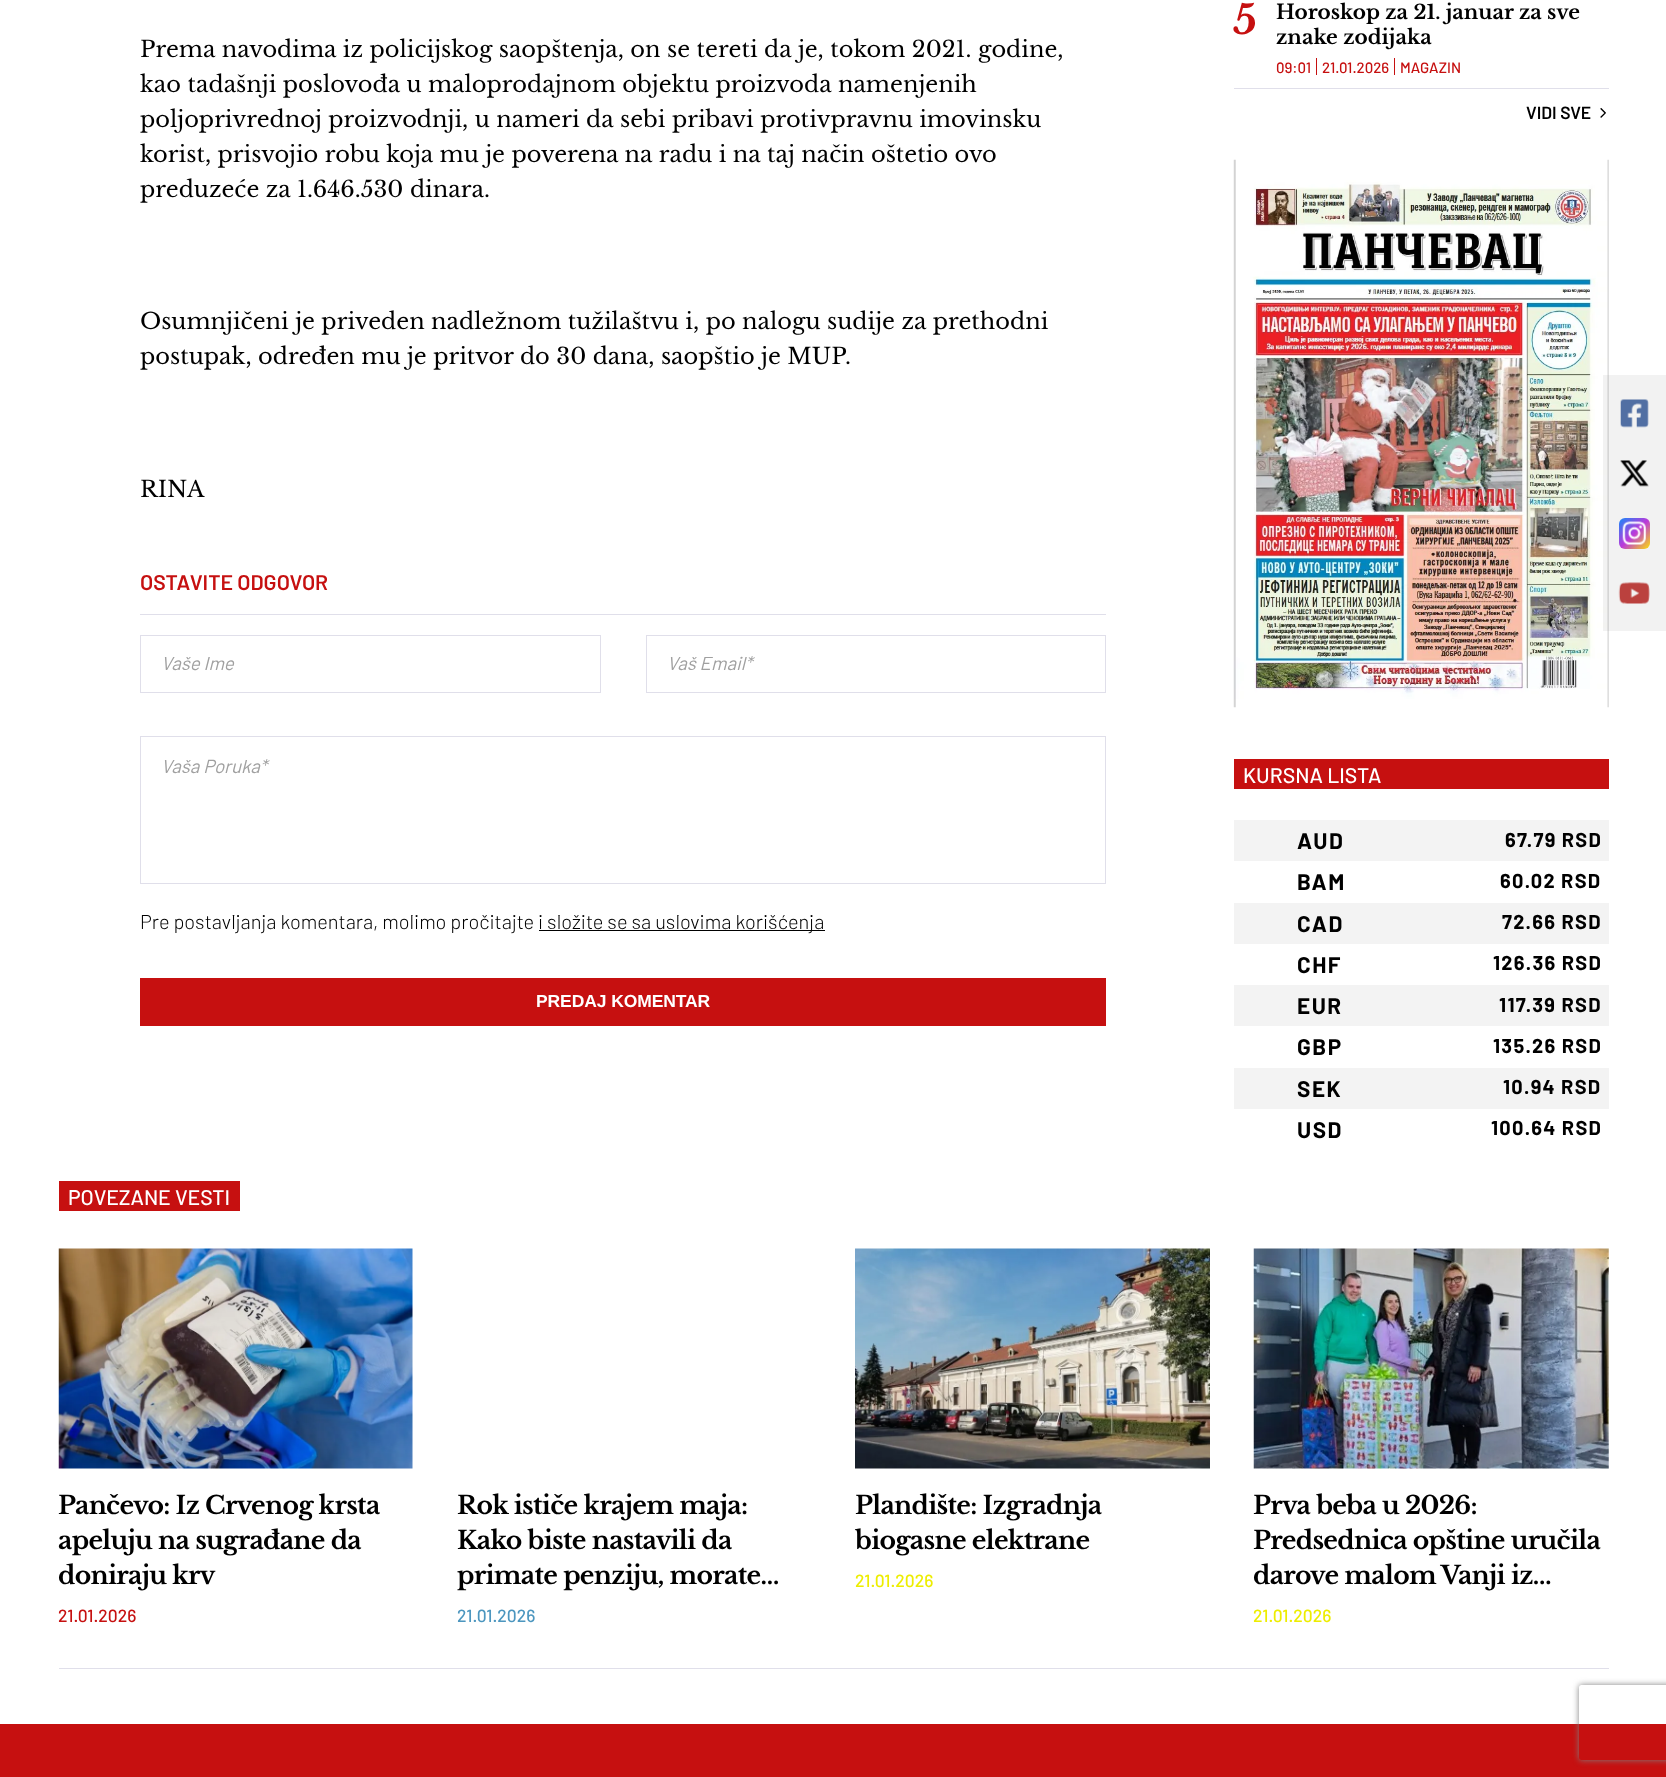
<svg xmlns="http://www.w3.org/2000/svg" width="1666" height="1777">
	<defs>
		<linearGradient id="g1" gradientUnits="userSpaceOnUse" x1="1619" y1="518" x2="1650" y2="549"><stop offset="0" stop-color="#1788F9" /><stop offset="0.5" stop-color="#BB3ADA" /><stop offset="1" stop-color="#FDE107" /></linearGradient>
		<clipPath id="clip1"><path d="M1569 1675H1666V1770H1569ZM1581.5 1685H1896.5C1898 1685 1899 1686 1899 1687.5V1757.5C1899 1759 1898 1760 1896.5 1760H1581.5C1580 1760 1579 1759 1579 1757.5V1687.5C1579 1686 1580 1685 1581.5 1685Z" clip-rule="evenodd" /></clipPath>
	</defs>
	<rect width="100%" height="100%" fill="#FFFFFF" />
	<g font-family="Libre Baskerville" font-size="22.5" fill="#000000">
		<text x="140" y="57">Prema navodima iz policijskog saopštenja, on se tereti da je, tokom 2021. godine,</text>
		<text x="140" y="92">kao tadašnji poslovođa u maloprodajnom objektu proizvoda namenjenih</text>
		<text x="140" y="127">poljoprivrednoj proizvodnji, u nameri da sebi pribavi protivpravnu imovinsku</text>
		<text x="140" y="162">korist, prisvojio robu koja mu je poverena na radu i na taj način oštetio ovo</text>
		<text x="140" y="197">preduzeće za 1.646.530 dinara.</text>
		<text x="140" y="329">Osumnjičeni je priveden nadležnom tužilaštvu i, po nalogu sudije za prethodni</text>
		<text x="140" y="364">postupak, određen mu je pritvor do 30 dana, saopštio je MUP.</text>
		<text x="140" y="497">RINA</text>
	</g>
	<rect x="140" y="614" width="966" height="1" fill="#E0DFEA" />
	<text x="140" y="590" font-family="Barlow" font-size="21.25" font-weight="600" fill="#C61010">OSTAVITE ODGOVOR</text>
	<rect x="140.5" y="635.5" width="460" height="57" fill="none" stroke="#E0DFEA" />
	<text x="161" y="670" font-family="Barlow" font-size="18.75" font-style="italic" fill="#A0A0A0">Vaše Ime</text>
	<rect x="646.5" y="635.5" width="459" height="57" fill="none" stroke="#E0DFEA" />
	<text x="667" y="670" font-family="Barlow" font-size="18.75" font-style="italic" fill="#A0A0A0">Vaš Email*</text>
	<rect x="140.5" y="736.5" width="965" height="147" fill="none" stroke="#E0DFEA" />
	<text x="161" y="773" font-family="Barlow" font-size="18.75" font-style="italic" fill="#A0A0A0">Vaša Poruka*</text>
	<text x="140" y="929" font-family="Barlow" font-size="20" font-weight="300" fill="#000000">Pre postavljanja komentara, molimo pročitajte</text>
	<rect x="539" y="930" width="286" height="1" fill="#000000" />
	<text x="538" y="929" font-family="Barlow" font-size="20" font-weight="300" fill="#000000">i složite se sa uslovima korišćenja</text>
	<rect x="140" y="978" width="966" height="48" fill="#C61010" />
	<text x="536" y="1007" font-family="Liberation Sans" font-size="17.5" font-weight="700" letter-spacing="-0.1" fill="#FFFFFF">PREDAJ KOMENTAR</text>
	<rect x="1234" y="88" width="375" height="1" fill="#E0DFEA" />
	<text x="1233" y="34" font-family="Libre Baskerville" font-size="40" font-weight="700" letter-spacing="-1" fill="#C61010">5</text>
	<g font-family="Libre Baskerville" font-size="20" font-weight="700" fill="#000000">
		<text x="1276" y="19">Horoskop za 21. januar za sve</text>
		<text x="1276" y="44">znake zodijaka</text>
	</g>
	<rect x="1316" y="58" width="1" height="17" fill="#C61010" />
	<g font-family="Barlow" font-size="15" font-weight="500" fill="#C61010">
		<text x="1276" y="73">09:01</text>
		<text x="1322" y="73">21.01.2026</text>
	</g>
	<rect x="1394" y="58" width="1" height="17" fill="#C61010" />
	<text x="1400" y="73" font-family="Barlow" font-size="15" font-weight="500" fill="#C61010">MAGAZIN</text>
	<text x="1526" y="119" font-family="Barlow" font-size="17.5" font-weight="600" fill="#000000">VIDI SVE</text>
	<image x="1600" y="108" width="6" height="10" href="assets/img1.png" />
	<image x="1233" y="159" width="376" height="549" href="assets/img2.png" />
	<rect x="1234" y="759" width="375" height="30" fill="#C61010" />
	<text x="1243" y="783" font-family="Barlow" font-size="21.25" font-weight="500" fill="#FFFFFF">KURSNA LISTA</text>
	<rect x="1234" y="820" width="375" height="41" fill="#F3F3F3" />
	<text x="1297" y="849" font-family="Barlow" font-size="22.5" font-weight="700" letter-spacing="1.5" fill="#000000">AUD</text>
	<text x="1505" y="847" font-family="Barlow" font-size="20" font-weight="700" letter-spacing="1.25" fill="#000000">67.79 RSD</text>
	<text x="1297" y="890" font-family="Barlow" font-size="22.5" font-weight="700" letter-spacing="1.5" fill="#000000">BAM</text>
	<text x="1500" y="888" font-family="Barlow" font-size="20" font-weight="700" letter-spacing="1.25" fill="#000000">60.02 RSD</text>
	<rect x="1234" y="903" width="375" height="41" fill="#F3F3F3" />
	<text x="1297" y="932" font-family="Barlow" font-size="22.5" font-weight="700" letter-spacing="1.5" fill="#000000">CAD</text>
	<text x="1502" y="929" font-family="Barlow" font-size="20" font-weight="700" letter-spacing="1.25" fill="#000000">72.66 RSD</text>
	<text x="1297" y="973" font-family="Barlow" font-size="22.5" font-weight="700" letter-spacing="1.5" fill="#000000">CHF</text>
	<text x="1493" y="970" font-family="Barlow" font-size="20" font-weight="700" letter-spacing="1.25" fill="#000000">126.36 RSD</text>
	<rect x="1234" y="985" width="375" height="41" fill="#F3F3F3" />
	<text x="1297" y="1014" font-family="Barlow" font-size="22.5" font-weight="700" letter-spacing="1.5" fill="#000000">EUR</text>
	<text x="1499" y="1012" font-family="Barlow" font-size="20" font-weight="700" letter-spacing="1.25" fill="#000000">117.39 RSD</text>
	<text x="1297" y="1055" font-family="Barlow" font-size="22.5" font-weight="700" letter-spacing="1.5" fill="#000000">GBP</text>
	<text x="1493" y="1053" font-family="Barlow" font-size="20" font-weight="700" letter-spacing="1.25" fill="#000000">135.26 RSD</text>
	<rect x="1234" y="1068" width="375" height="41" fill="#F3F3F3" />
	<text x="1297" y="1097" font-family="Barlow" font-size="22.5" font-weight="700" letter-spacing="1.5" fill="#000000">SEK</text>
	<text x="1503" y="1094" font-family="Barlow" font-size="20" font-weight="700" letter-spacing="1.25" fill="#000000">10.94 RSD</text>
	<text x="1297" y="1138" font-family="Barlow" font-size="22.5" font-weight="700" letter-spacing="1.5" fill="#000000">USD</text>
	<text x="1491" y="1135" font-family="Barlow" font-size="20" font-weight="700" letter-spacing="1.25" fill="#000000">100.64 RSD</text>
	<rect x="59" y="1181" width="181" height="30" fill="#C61010" />
	<text x="68" y="1205" font-family="Barlow" font-size="21.25" font-weight="500" fill="#FFFFFF">POVEZANE VESTI</text>
	<rect x="59" y="1668" width="1550" height="1" fill="#E0DFEA" />
	<image x="58" y="1248" width="355" height="221" href="assets/img3.png" />
	<g font-family="Libre Baskerville" font-size="25" font-weight="700" letter-spacing="-0.7" fill="#000000">
		<text x="58" y="1514">Pančevo: Iz Crvenog krsta</text>
		<text x="58" y="1549">apeluju na sugrađane da</text>
		<text x="58" y="1584">doniraju krv</text>
	</g>
	<text x="58" y="1622" font-family="Barlow" font-size="17.5" font-weight="500" fill="#C61010">21.01.2026</text>
	<g font-family="Libre Baskerville" font-size="25" font-weight="700" letter-spacing="-0.7" fill="#000000">
		<text x="457" y="1514">Rok ističe krajem maja:</text>
		<text x="457" y="1549">Kako biste nastavili da</text>
		<text x="457" y="1584">primate penziju, morate…</text>
	</g>
	<text x="457" y="1622" font-family="Barlow" font-size="17.5" font-weight="500" fill="#4C96BF">21.01.2026</text>
	<image x="855" y="1248" width="355" height="221" href="assets/img4.png" />
	<g font-family="Libre Baskerville" font-size="25" font-weight="700" letter-spacing="-0.7" fill="#000000">
		<text x="855" y="1514">Plandište: Izgradnja</text>
		<text x="855" y="1549">biogasne elektrane</text>
	</g>
	<text x="855" y="1587" font-family="Barlow" font-size="17.5" font-weight="500" fill="#EDED00">21.01.2026</text>
	<image x="1253" y="1248" width="356" height="221" href="assets/img5.png" />
	<g font-family="Libre Baskerville" font-size="25" font-weight="700" letter-spacing="-0.7" fill="#000000">
		<text x="1253" y="1514">Prva beba u 2026:</text>
		<text x="1253" y="1549">Predsednica opštine uručila</text>
		<text x="1253" y="1584">darove malom Vanji iz…</text>
	</g>
	<text x="1253" y="1622" font-family="Barlow" font-size="17.5" font-weight="500" fill="#EDED00">21.01.2026</text>
	<rect x="0" y="1724" width="1666" height="53" fill="#C61010" />
	<rect x="1603" y="375" width="63" height="256" fill="#979797" fill-opacity="0.12" />
	<image x="1620" y="399" width="29" height="29" href="assets/img6.png" />
	<image x="1620" y="460" width="29" height="27" href="assets/img7.png" />
	<rect x="1619" y="518" width="31" height="31" rx="6" fill="url(#g1)" />
	<image x="1622" y="521" width="25" height="24" href="assets/img8.png" />
	<image x="1618" y="582" width="32" height="22" href="assets/img9.png" />
	<g clip-path="url(#clip1)">
		<rect x="1579" y="1685" width="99" height="75" rx="2.5" fill="#808080" filter="blur(3px)" />
	</g>
</svg>
